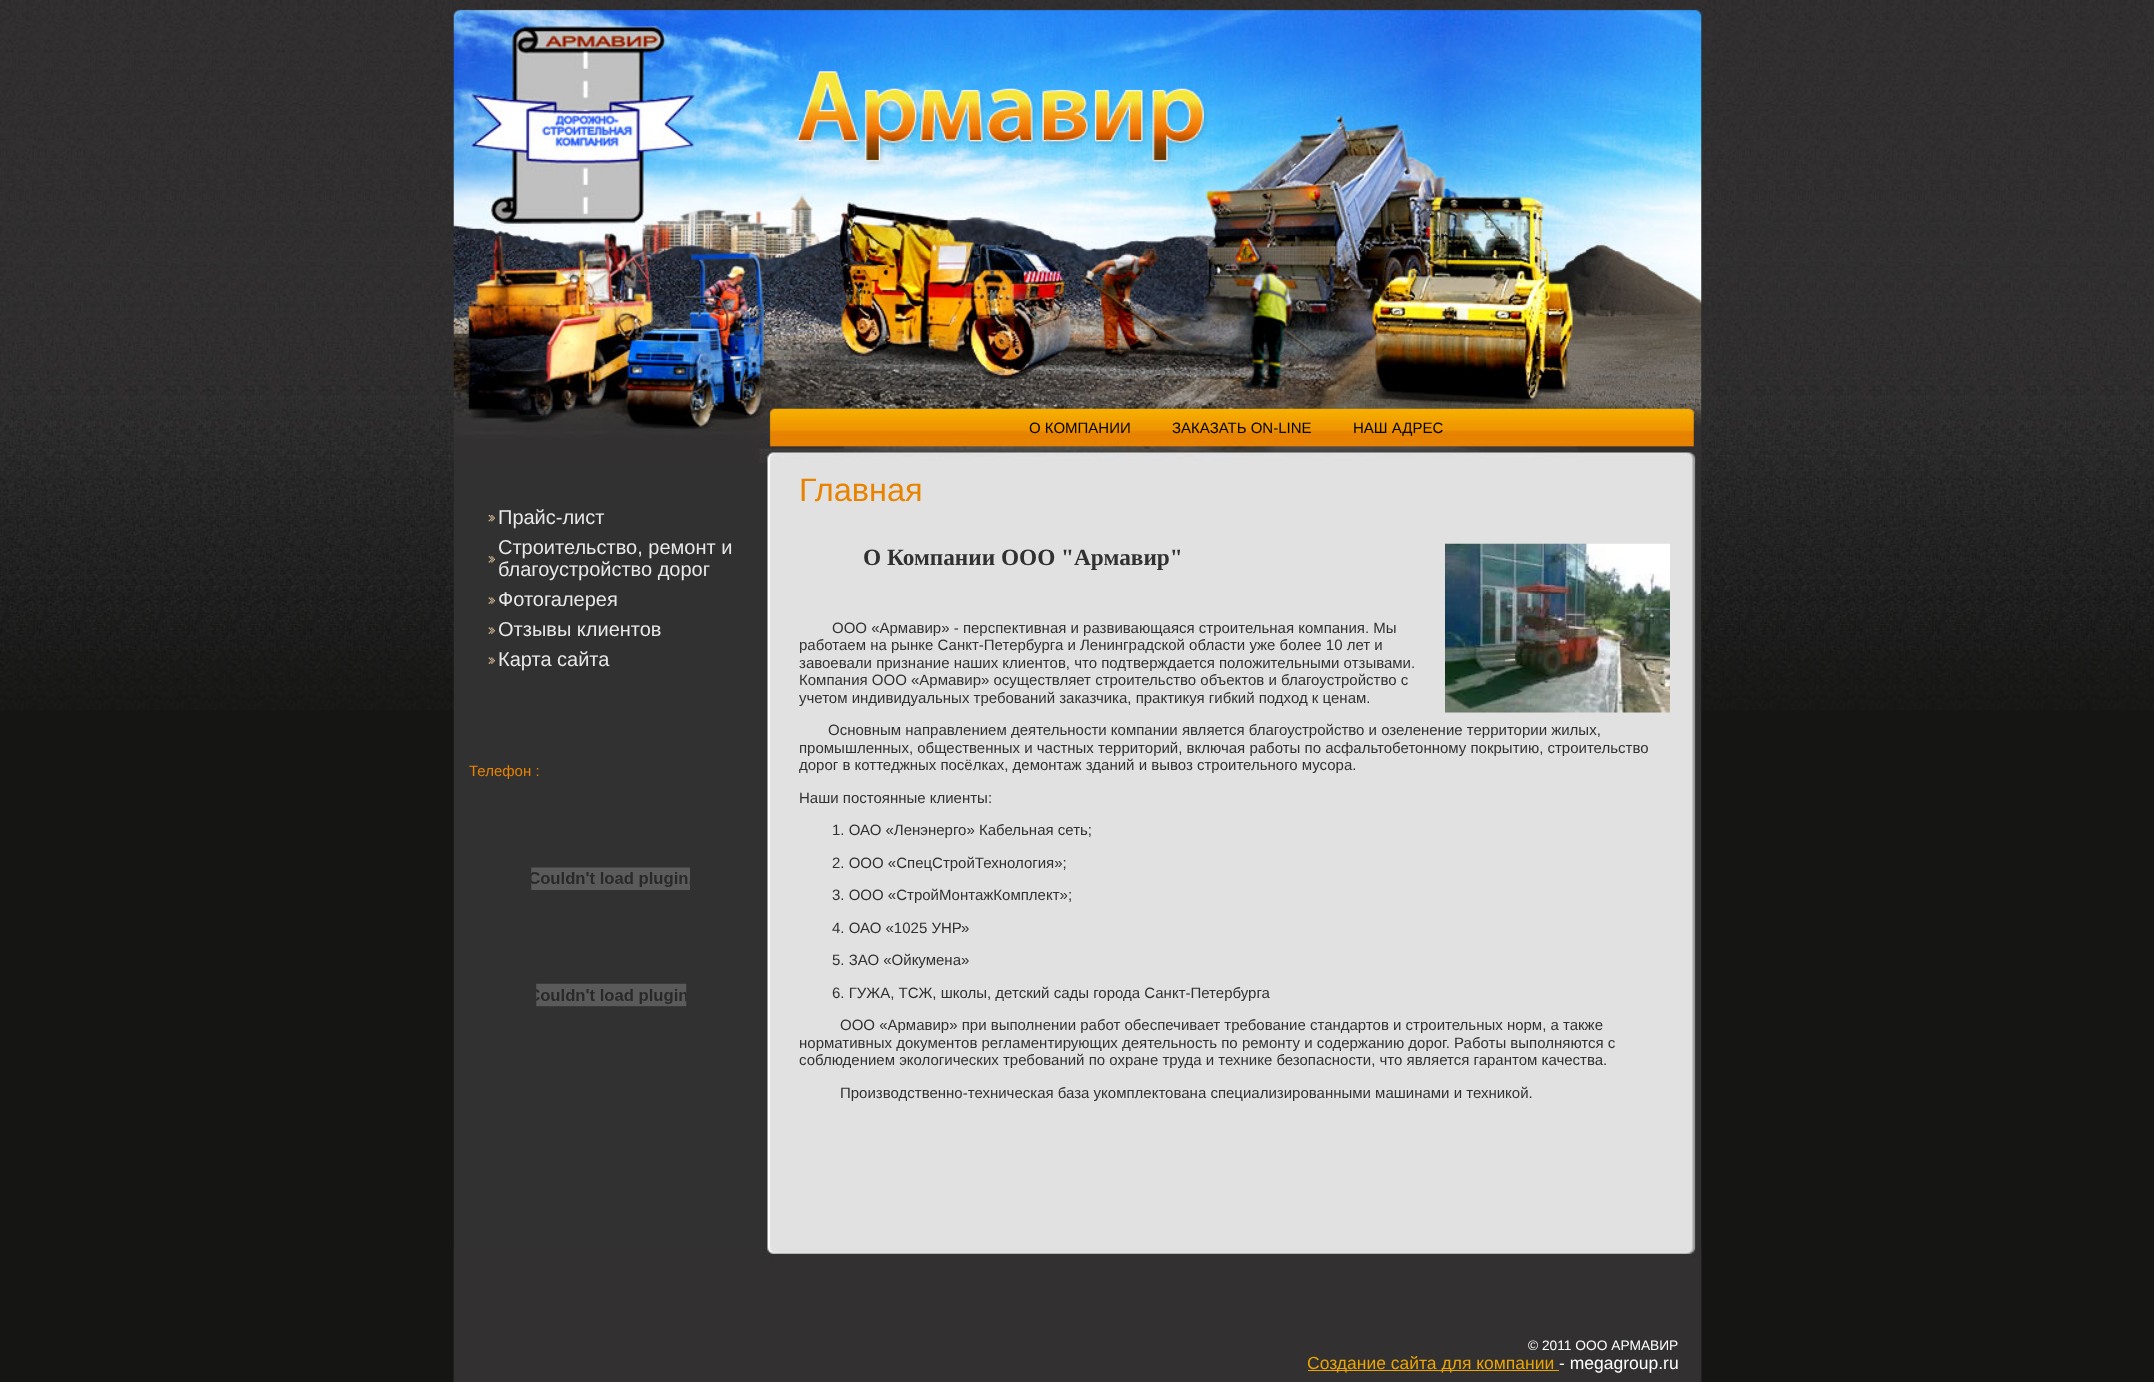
<svg xmlns="http://www.w3.org/2000/svg" width="2154" height="1382">
	<rect width="100%" height="100%" fill="#151514" />
	<image x="0" y="0" width="2154" height="710" href="assets/img1.png" />
	<image x="453" y="0" width="1249" height="1382" href="assets/img2.png" />
	<image x="453" y="0" width="1249" height="463" href="assets/img3.png" />
	<g font-family="Liberation Sans" font-size="15" fill="#000000">
		<text x="1029" y="433">О КОМПАНИИ</text>
		<text x="1172" y="433">ЗАКАЗАТЬ ON-LINE</text>
		<text x="1353" y="433">НАШ АДРЕС</text>
	</g>
	<image x="488" y="515" width="7" height="7" href="assets/img4.png" />
	<text x="498" y="524" font-family="Liberation Sans" font-size="20" fill="#E8E8E8">Прайс-лист</text>
	<image x="488" y="556" width="7" height="7" href="assets/img5.png" />
	<g font-family="Liberation Sans" font-size="20" fill="#E8E8E8">
		<text x="498" y="554">Строительство, ремонт и</text>
		<text x="498" y="576">благоустройство дорог</text>
	</g>
	<image x="488" y="597" width="7" height="7" href="assets/img6.png" />
	<text x="498" y="606" font-family="Liberation Sans" font-size="20" fill="#E8E8E8">Фотогалерея</text>
	<image x="488" y="627" width="7" height="7" href="assets/img6.png" />
	<text x="498" y="636" font-family="Liberation Sans" font-size="20" fill="#E8E8E8">Отзывы клиентов</text>
	<image x="488" y="657" width="7" height="7" href="assets/img6.png" />
	<text x="498" y="666" font-family="Liberation Sans" font-size="20" fill="#E8E8E8">Карта сайта</text>
	<text x="469" y="776" font-family="Liberation Sans" font-size="15" fill="#E88300">Телефон :</text>
	<image x="531" y="867" width="159" height="23" href="assets/img7.png" />
	<image x="536" y="983" width="151" height="24" href="assets/img8.png" />
	<text x="799" y="501" font-family="Liberation Sans" font-size="32.5" fill="#E88300">Главная</text>
	<text x="863" y="565" font-family="Liberation Serif" font-size="23.3" font-weight="700" fill="#323131">О Компании ООО "Армавир"</text>
	<image x="1445" y="543" width="225" height="170" href="assets/img9.png" />
	<g font-family="Liberation Sans" font-size="15" fill="#323131">
		<text x="832" y="633">ООО «Армавир» - перспективная и развивающаяся строительная компания. Мы</text>
		<text x="799" y="650">работаем на рынке Санкт-Петербурга и Ленинградской области уже более 10 лет и</text>
		<text x="799" y="668">завоевали признание наших клиентов, что подтверждается положительными отзывами.</text>
		<text x="799" y="685">Компания ООО «Армавир» осуществляет строительство объектов и благоустройство с</text>
		<text x="799" y="703">учетом индивидуальных требований заказчика, практикуя гибкий подход к ценам.</text>
		<text x="828" y="735">Основным направлением деятельности компании является благоустройство и озеленение территории жилых,</text>
		<text x="799" y="753">промышленных, общественных и частных территорий, включая работы по асфальтобетонному покрытию, строительство</text>
		<text x="799" y="770">дорог в коттеджных посёлках, демонтаж зданий и вывоз строительного мусора.</text>
		<text x="799" y="803">Наши постоянные клиенты:</text>
		<text x="832" y="835">1. ОАО «Ленэнерго» Кабельная сеть;</text>
		<text x="832" y="868">2. ООО «СпецСтройТехнология»;</text>
		<text x="832" y="900">3. ООО «СтройМонтажКомплект»;</text>
		<text x="832" y="933">4. ОАО «1025 УНР»</text>
		<text x="832" y="965">5. ЗАО «Ойкумена»</text>
		<text x="832" y="998">6. ГУЖА, ТСЖ, школы, детский сады города Санкт-Петербурга</text>
		<text x="840" y="1030">ООО «Армавир» при выполнении работ обеспечивает требование стандартов и строительных норм, а также</text>
		<text x="799" y="1048">нормативных документов регламентирующих деятельность по ремонту и содержанию дорог. Работы выполняются с</text>
		<text x="799" y="1065">соблюдением экологических требований по охране труда и технике безопасности, что является гарантом качества.</text>
		<text x="840" y="1098">Производственно-техническая база укомплектована специализированными машинами и техникой.</text>
	</g>
	<image x="453" y="1247" width="1249" height="135" href="assets/img10.png" />
	<text x="1528" y="1350" font-family="Liberation Sans" font-size="13.75" fill="#FFFFFF">© 2011 ООО АРМАВИР</text>
	<rect x="1308" y="1370" width="251" height="1" fill="#ECA501" />
	<text x="1307" y="1369" font-family="Liberation Sans" font-size="17.5" fill="#ECA501">Создание сайта для компании</text>
	<text x="1559" y="1369" font-family="Liberation Sans" font-size="17.5" fill="#FFFFFF">- megagroup.ru</text>
</svg>
